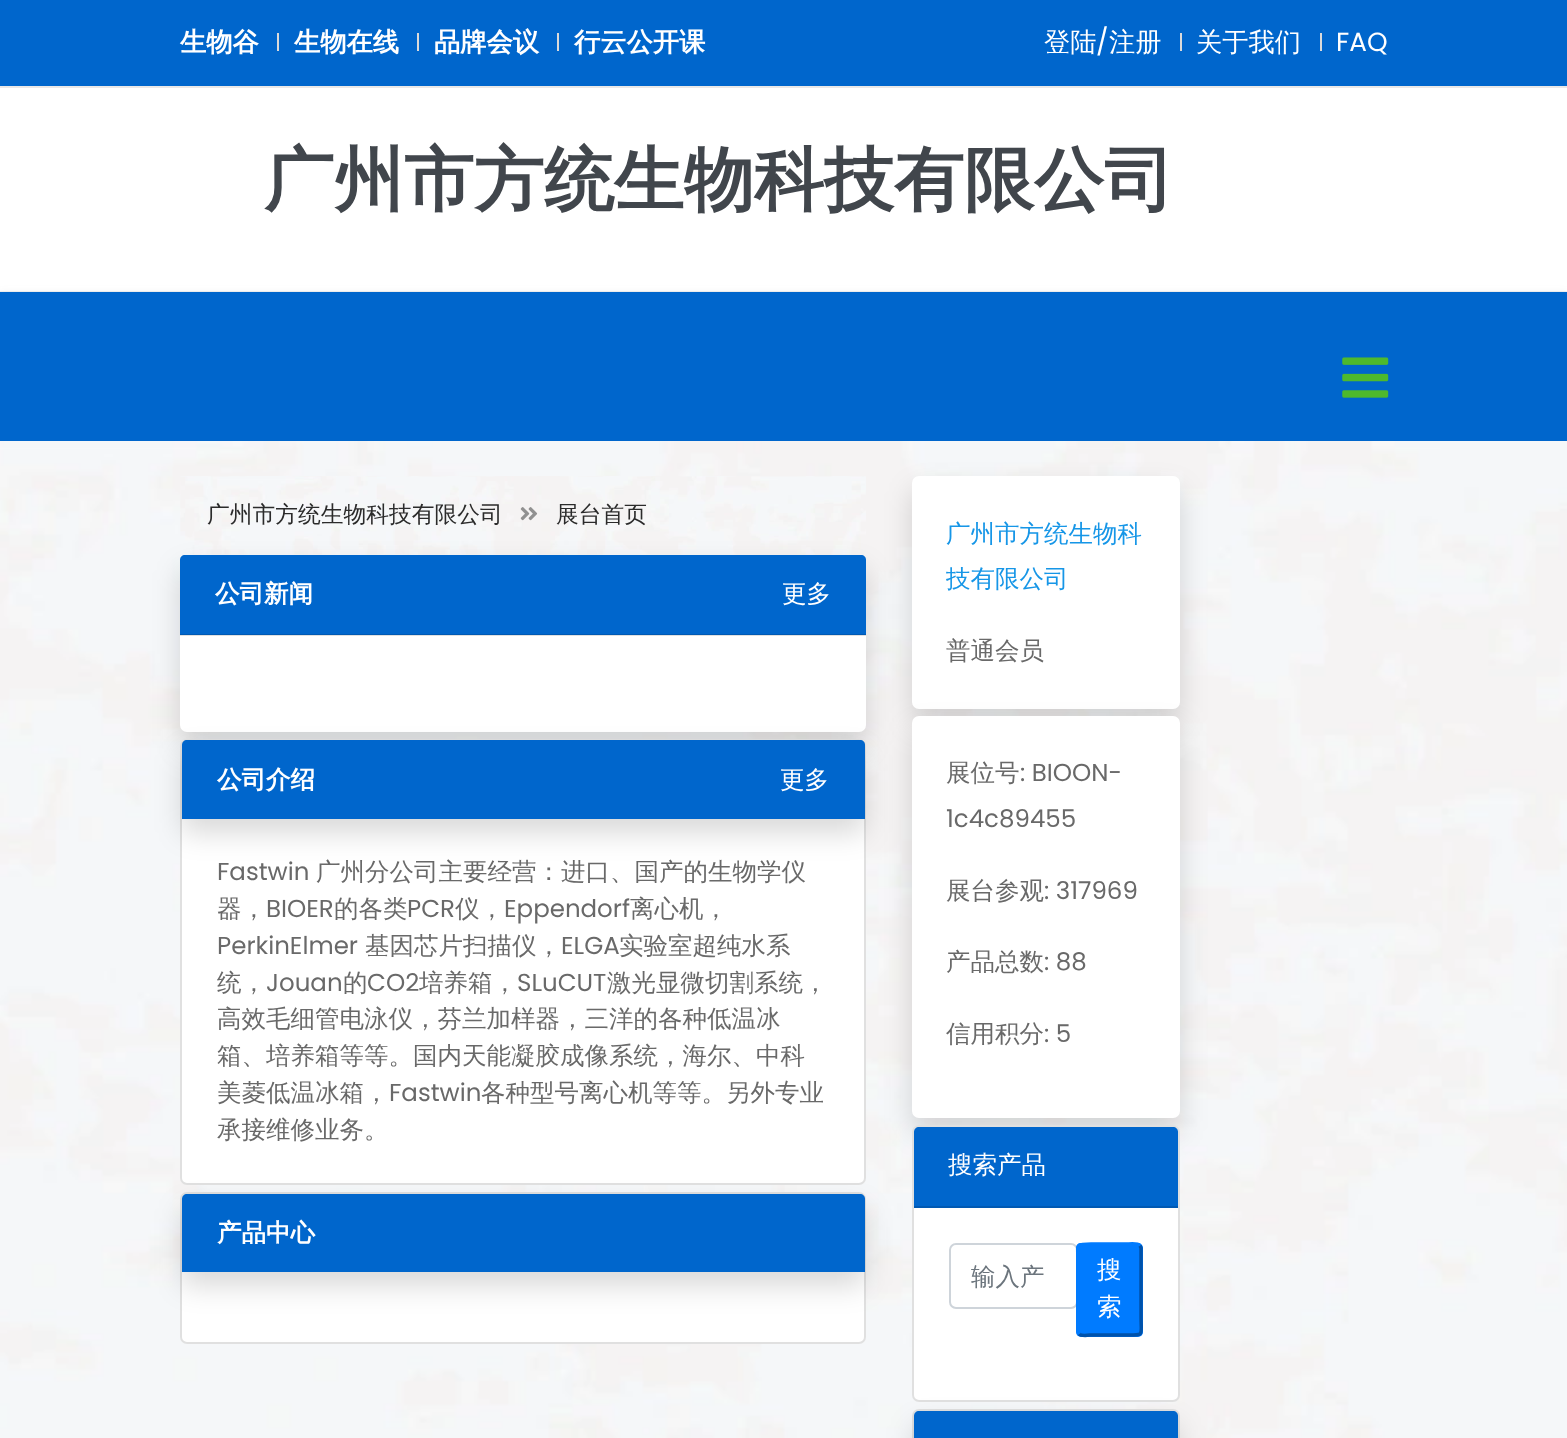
<svg xmlns="http://www.w3.org/2000/svg" width="1567" height="1438">
	<rect width="100%" height="100%" fill="#FFFFFF" />
	<rect x="0" y="0" width="1567" height="86" fill="#0066CC" />
	<rect x="0" y="86" width="1567" height="2" fill="#E9E8E8" />
	<text x="180" y="51" font-family="WenQuanYi Zen Hei" font-size="26.25" font-weight="700" fill="#FFFFFF">生物谷</text>
	<rect x="277" y="33" width="2" height="18" fill="#DBDADA" />
	<text x="294" y="51" font-family="WenQuanYi Zen Hei" font-size="26.25" font-weight="700" fill="#FFFFFF">生物在线</text>
	<rect x="417" y="33" width="2" height="18" fill="#DBDADA" />
	<text x="434" y="51" font-family="WenQuanYi Zen Hei" font-size="26.25" font-weight="700" fill="#FFFFFF">品牌会议</text>
	<rect x="557" y="33" width="2" height="18" fill="#DBDADA" />
	<text x="574" y="51" font-family="WenQuanYi Zen Hei" font-size="26.25" font-weight="700" fill="#FFFFFF">行云公开课</text>
	<text x="1044" y="51" font-family="WenQuanYi Zen Hei" font-size="26.25" font-weight="500" fill="#FFFFFF">登陆</text>
	<text x="1096" y="51" font-family="Poppins" font-size="26.25" fill="#FFFFFF">/</text>
	<text x="1109" y="51" font-family="WenQuanYi Zen Hei" font-size="26.25" font-weight="500" fill="#FFFFFF">注册</text>
	<rect x="1180" y="33" width="2" height="18" fill="#DBDADA" />
	<text x="1196" y="51" font-family="WenQuanYi Zen Hei" font-size="26.25" font-weight="500" fill="#FFFFFF">关于我们</text>
	<rect x="1320" y="33" width="2" height="18" fill="#DBDADA" />
	<text x="1336" y="51" font-family="Poppins" font-size="26.25" fill="#FFFFFF">FAQ</text>
	<rect x="0" y="291" width="1567" height="1" fill="#F2F2F2" />
	<text x="264" y="204" font-family="WenQuanYi Zen Hei" font-size="70" font-weight="700" fill="#41464C">广州市方统生物科技有限公司</text>
	<rect x="0" y="294" width="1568" height="149" fill="#686868" fill-opacity="0.14" filter="blur(4px)" />
	<rect x="0" y="292" width="1567" height="149" fill="#0066CC" />
	<image x="1342" y="357" width="47" height="41" href="assets/img1.png" />
	<image x="0" y="441" width="1567" height="997" href="assets/img2.png" />
	<image x="180" y="476" width="686" height="79" href="assets/img3.png" />
	<text x="207" y="522" font-family="WenQuanYi Zen Hei" font-size="22.75" font-weight="500" fill="#2B2B2B">广州市方统生物科技有限公司</text>
	<image x="520" y="507" width="18" height="14" href="assets/img4.png" />
	<text x="556" y="522" font-family="WenQuanYi Zen Hei" font-size="22.75" font-weight="500" fill="#2B2B2B">展台首页</text>
	<rect x="180" y="569" width="686" height="177" rx="7" fill="#000000" fill-opacity="0.15" filter="blur(14px)" />
	<rect x="180" y="555" width="686" height="177" rx="7" fill="#FFFFFF" />
	<path d="M185 555H861C864 555 866 557 866 560V635H180V560C180 557 182 555 185 555Z" fill="#0066CC" />
	<rect x="180" y="634" width="686" height="2" fill="#000000" fill-opacity="0.12" />
	<text x="215" y="602" font-family="WenQuanYi Zen Hei" font-size="24.5" font-weight="700" fill="#FFFFFF">公司新闻</text>
	<text x="782" y="602" font-family="WenQuanYi Zen Hei" font-size="24.5" font-weight="500" fill="#FFFFFF">更多</text>
	<rect x="180" y="739" width="686" height="446" rx="7" fill="#FFFFFF" />
	<rect x="181" y="740" width="684" height="444" rx="6" fill="none" stroke="#000000" stroke-opacity="0.12" stroke-width="2" />
	<rect x="182" y="754" width="683" height="79" rx="5" fill="#000000" fill-opacity="0.15" filter="blur(14px)" />
	<path d="M187 740H860C863 740 865 742 865 745V819H182V745C182 742 184 740 187 740Z" fill="#0066CC" />
	<text x="217" y="788" font-family="WenQuanYi Zen Hei" font-size="24.5" font-weight="700" fill="#FFFFFF">公司介绍</text>
	<text x="780" y="788" font-family="WenQuanYi Zen Hei" font-size="24.5" font-weight="500" fill="#FFFFFF">更多</text>
	<text x="217" y="880" font-family="Poppins" font-size="24.5" fill="#696969">Fastwin</text>
	<g font-family="WenQuanYi Zen Hei" font-size="24.5" font-weight="500" fill="#696969">
		<text x="316" y="880">广州分公司主要经营：进口、国产的生物学仪</text>
		<text x="217" y="917">器，</text>
	</g>
	<text x="266" y="917" font-family="Poppins" font-size="24.5" fill="#696969">BIOER</text>
	<text x="334" y="917" font-family="WenQuanYi Zen Hei" font-size="24.5" font-weight="500" fill="#696969">的各类</text>
	<text x="407" y="917" font-family="Poppins" font-size="24.5" fill="#696969">PCR</text>
	<text x="455" y="917" font-family="WenQuanYi Zen Hei" font-size="24.5" font-weight="500" fill="#696969">仪，</text>
	<text x="504" y="917" font-family="Poppins" font-size="24.5" fill="#696969">Eppendorf</text>
	<text x="630" y="917" font-family="WenQuanYi Zen Hei" font-size="24.5" font-weight="500" fill="#696969">离心机，</text>
	<text x="217" y="954" font-family="Poppins" font-size="24.5" fill="#696969">PerkinElmer</text>
	<text x="365" y="954" font-family="WenQuanYi Zen Hei" font-size="24.5" font-weight="500" fill="#696969">基因芯片扫描仪，</text>
	<text x="561" y="954" font-family="Poppins" font-size="24.5" fill="#696969">ELGA</text>
	<g font-family="WenQuanYi Zen Hei" font-size="24.5" font-weight="500" fill="#696969">
		<text x="619" y="954">实验室超纯水系</text>
		<text x="217" y="991">统，</text>
	</g>
	<text x="266" y="991" font-family="Poppins" font-size="24.5" fill="#696969">Jouan</text>
	<text x="343" y="991" font-family="WenQuanYi Zen Hei" font-size="24.5" font-weight="500" fill="#696969">的</text>
	<text x="367" y="991" font-family="Poppins" font-size="24.5" fill="#696969">CO2</text>
	<text x="419" y="991" font-family="WenQuanYi Zen Hei" font-size="24.5" font-weight="500" fill="#696969">培养箱，</text>
	<text x="517" y="991" font-family="Poppins" font-size="24.5" fill="#696969">SLuCUT</text>
	<g font-family="WenQuanYi Zen Hei" font-size="24.5" font-weight="500" fill="#696969">
		<text x="607" y="991">激光显微切割系统，</text>
		<text x="217" y="1027">高效毛细管电泳仪，芬兰加样器，三洋的各种低温冰</text>
		<text x="217" y="1064">箱、培养箱等等。国内天能凝胶成像系统，海尔、中科</text>
		<text x="217" y="1101">美菱低温冰箱，</text>
	</g>
	<text x="389" y="1101" font-family="Poppins" font-size="24.5" fill="#696969">Fastwin</text>
	<g font-family="WenQuanYi Zen Hei" font-size="24.5" font-weight="500" fill="#696969">
		<text x="481" y="1101">各种型号离心机等等。另外专业</text>
		<text x="217" y="1138">承接维修业务。</text>
	</g>
	<rect x="180" y="1192" width="686" height="152" rx="7" fill="#FFFFFF" />
	<rect x="181" y="1193" width="684" height="150" rx="6" fill="none" stroke="#000000" stroke-opacity="0.12" stroke-width="2" />
	<rect x="182" y="1208" width="683" height="78" rx="5" fill="#000000" fill-opacity="0.15" filter="blur(14px)" />
	<path d="M187 1194H860C863 1194 865 1196 865 1199V1272H182V1199C182 1196 184 1194 187 1194Z" fill="#0066CC" />
	<text x="217" y="1241" font-family="WenQuanYi Zen Hei" font-size="24.5" font-weight="700" fill="#FFFFFF">产品中心</text>
	<rect x="912" y="490" width="268" height="233" rx="7" fill="#000000" fill-opacity="0.15" filter="blur(14px)" />
	<rect x="912" y="476" width="268" height="233" rx="7" fill="#FFFFFF" />
	<g font-family="WenQuanYi Zen Hei" font-size="24.5" font-weight="500" fill="#1696E7">
		<text x="946" y="542">广州市方统生物科</text>
		<text x="946" y="587">技有限公司</text>
	</g>
	<text x="946" y="659" font-family="WenQuanYi Zen Hei" font-size="24.5" font-weight="500" fill="#696969">普通会员</text>
	<rect x="912" y="730" width="268" height="402" rx="7" fill="#000000" fill-opacity="0.15" filter="blur(14px)" />
	<rect x="912" y="716" width="268" height="402" rx="7" fill="#FFFFFF" />
	<text x="946" y="781" font-family="WenQuanYi Zen Hei" font-size="24.5" font-weight="500" fill="#696969">展位号</text>
	<g font-family="Poppins" font-size="24.5" fill="#696969">
		<text x="1020" y="781">: BIOON-</text>
		<text x="946" y="827">1c4c89455</text>
	</g>
	<text x="946" y="899" font-family="WenQuanYi Zen Hei" font-size="24.5" font-weight="500" fill="#696969">展台参观</text>
	<text x="1044" y="899" font-family="Poppins" font-size="24.5" fill="#696969">: 317969</text>
	<text x="946" y="970" font-family="WenQuanYi Zen Hei" font-size="24.5" font-weight="500" fill="#696969">产品总数</text>
	<text x="1044" y="970" font-family="Poppins" font-size="24.5" fill="#696969">: 88</text>
	<text x="946" y="1042" font-family="WenQuanYi Zen Hei" font-size="24.5" font-weight="500" fill="#696969">信用积分</text>
	<text x="1044" y="1042" font-family="Poppins" font-size="24.5" fill="#696969">: 5</text>
	<rect x="912" y="1125" width="268" height="277" rx="7" fill="#FFFFFF" />
	<rect x="913" y="1126" width="266" height="275" rx="6" fill="none" stroke="#000000" stroke-opacity="0.12" stroke-width="2" />
	<path d="M919 1127H1173C1176 1127 1178 1129 1178 1132V1208H914V1132C914 1129 916 1127 919 1127Z" fill="#0066CC" />
	<rect x="914" y="1206" width="264" height="2" fill="#0059B3" />
	<text x="948" y="1173" font-family="WenQuanYi Zen Hei" font-size="24.5" font-weight="500" fill="#FFFFFF">搜索产品</text>
	<rect x="950" y="1244" width="127" height="64" rx="6" fill="none" stroke="#CED4DA" stroke-width="2" />
	<text x="971" y="1285" font-family="WenQuanYi Zen Hei" font-size="24.5" font-weight="500" fill="#6C757D">输入产</text>
	<rect x="1076" y="1243" width="67" height="94" rx="5" fill="#007BFF" />
	<path d="M1140 1245.5L1141 1248V1317.5C1141 1335.5 1144.5 1335 1128 1335H1091C1090 1335 1081.5 1336.5 1079 1334" fill="none" stroke="#0052AA" stroke-width="3.5" />
	<path d="M1079 1334L1078 1331.5V1262C1078 1244 1074.5 1244 1091 1244H1128C1129 1244 1137.5 1243 1140 1245.5" fill="none" stroke="#007BFF" stroke-width="3.5" />
	<g font-family="WenQuanYi Zen Hei" font-size="24.5" font-weight="500" fill="#FFFFFF">
		<text x="1097" y="1278">搜</text>
		<text x="1097" y="1315">索</text>
	</g>
	<rect x="912" y="1409" width="268" height="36" rx="7" fill="#FFFFFF" />
	<rect x="913" y="1410" width="266" height="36" rx="6" fill="none" stroke="#000000" stroke-opacity="0.12" stroke-width="2" />
	<rect x="914" y="1425" width="264" height="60" rx="5" fill="#000000" fill-opacity="0.15" filter="blur(14px)" />
	<path d="M919 1411H1173C1176 1411 1178 1413 1178 1416V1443H914V1416C914 1413 916 1411 919 1411Z" fill="#0066CC" />
</svg>
